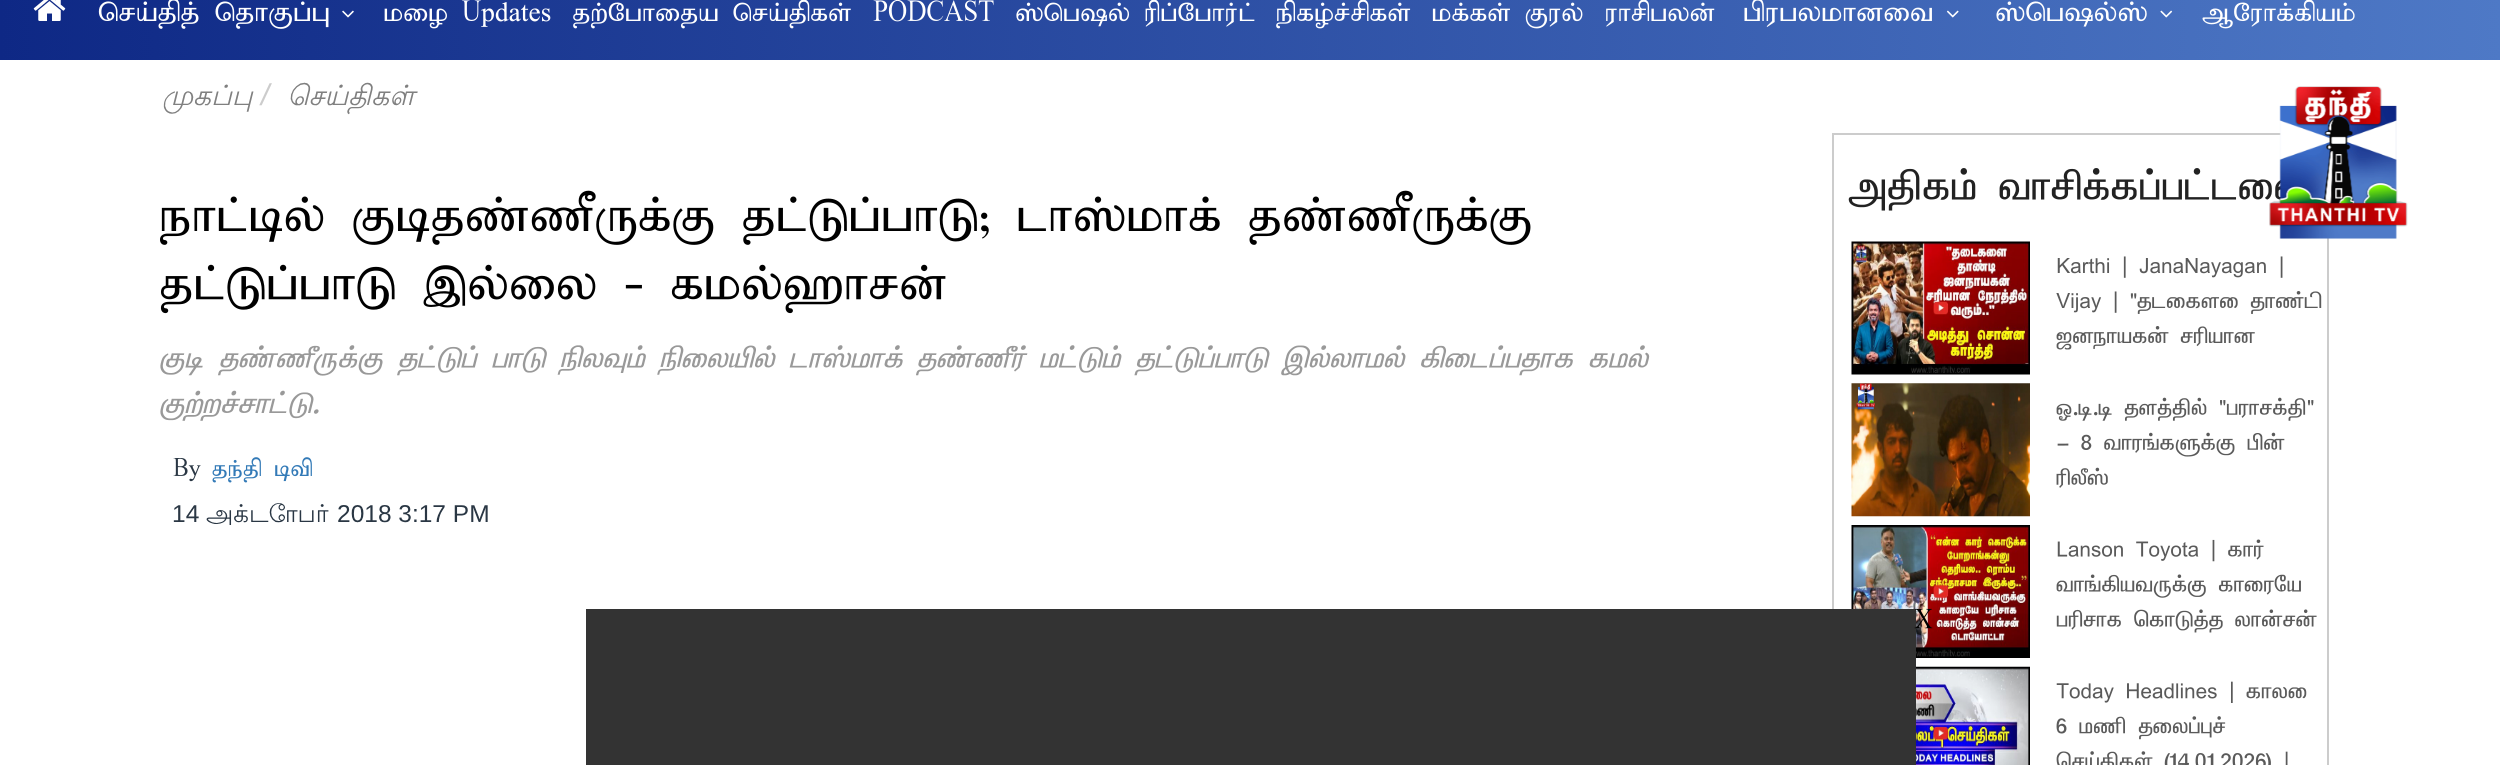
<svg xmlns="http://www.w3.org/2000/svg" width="2500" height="765">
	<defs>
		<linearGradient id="g1" gradientUnits="userSpaceOnUse" x1="0" y1="14" x2="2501" y2="14"><stop offset="0" stop-color="#0E2885" /><stop offset="1" stop-color="#4E79C6" /></linearGradient>
	</defs>
	<rect width="100%" height="100%" fill="#FFFFFF" />
	<rect x="0" y="0" width="2500" height="60" fill="url(#g1)" />
	<image x="33" y="0" width="33" height="21" href="assets/img1.png" />
	<image x="98" y="0" width="231" height="29" href="assets/img2.png" />
	<image x="342" y="10" width="12" height="8" href="assets/img3.png" />
	<image x="384" y="0" width="167" height="29" href="assets/img4.png" />
	<image x="573" y="0" width="278" height="29" href="assets/img5.png" />
	<image x="873" y="0" width="121" height="22" href="assets/img6.png" />
	<image x="1016" y="0" width="239" height="27" href="assets/img7.png" />
	<image x="1276" y="0" width="135" height="29" href="assets/img8.png" />
	<image x="1432" y="2" width="151" height="27" href="assets/img9.png" />
	<image x="1606" y="0" width="109" height="27" href="assets/img10.png" />
	<image x="1744" y="0" width="188" height="27" href="assets/img11.png" />
	<image x="1946" y="10" width="13" height="8" href="assets/img12.png" />
	<image x="1996" y="1" width="151" height="26" href="assets/img13.png" />
	<image x="2160" y="10" width="13" height="8" href="assets/img14.png" />
	<image x="2202" y="0" width="153" height="29" href="assets/img15.png" />
	<rect x="1833" y="134" width="495" height="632" fill="none" stroke="#CCCCCC" stroke-width="2" />
	<image x="1848" y="168" width="434" height="43" href="assets/img25.png" />
	<image x="2269" y="86" width="139" height="153" href="assets/img16.png" />
	<text x="162" y="105" font-family="Lohit Tamil" font-size="28" font-style="italic" fill="#808080">முகப்பு</text>
	<text x="261" y="105" font-family="Liberation Sans" font-size="30" font-style="italic" fill="#CCCCCC">/</text>
	<text x="287" y="105" font-family="Lohit Tamil" font-size="28" font-style="italic" fill="#808080">செய்திகள்</text>
	<image x="160" y="190" width="1371" height="55" href="assets/img17.png" />
	<image x="160" y="264" width="786" height="50" href="assets/img18.png" />
	<image x="160" y="345" width="616" height="31" href="assets/img19.png" />
	<image x="789" y="345" width="114" height="23" href="assets/img20.png" />
	<image x="916" y="345" width="734" height="31" href="assets/img21.png" />
	<image x="160" y="390" width="159" height="31" href="assets/img22.png" />
	<image x="173" y="458" width="28" height="24" href="assets/img23.png" />
	<image x="212" y="457" width="100" height="26" href="assets/img24.png" />
	<text x="172" y="522" font-family="Liberation Sans" font-size="24.5" fill="#2A3744">14</text>
	<text x="206" y="522" font-family="Lohit Tamil" font-size="24.5" fill="#2A3744">அக்டோபர்</text>
	<text x="337" y="522" font-family="Liberation Sans" font-size="24.5" fill="#2A3744">2018 3:17 PM</text>
	<image x="1851" y="241" width="179" height="134" href="assets/img26.png" />
	<image x="2057" y="256" width="226" height="22" href="assets/img27.png" />
	<image x="2056" y="291" width="266" height="23" href="assets/img28.png" />
	<image x="2056" y="326" width="199" height="24" href="assets/img29.png" />
	<image x="1851" y="383" width="179" height="134" href="assets/img30.png" />
	<image x="2056" y="397" width="258" height="24" href="assets/img31.png" />
	<image x="2057" y="432" width="228" height="25" href="assets/img32.png" />
	<image x="2056" y="467" width="52" height="21" href="assets/img33.png" />
	<image x="1851" y="525" width="179" height="133" href="assets/img34.png" />
	<image x="2057" y="539" width="207" height="23" href="assets/img35.png" />
	<image x="2056" y="574" width="245" height="24" href="assets/img36.png" />
	<image x="2056" y="609" width="261" height="24" href="assets/img37.png" />
	<image x="1916" y="666" width="114" height="99" href="assets/img38.png" />
	<image x="2056" y="681" width="251" height="22" href="assets/img39.png" />
	<image x="2056" y="716" width="170" height="24" href="assets/img40.png" />
	<image x="2056" y="751" width="232" height="14" href="assets/img41.png" />
	<rect x="586" y="609" width="1330" height="156" fill="#333333" />
	<image x="1914" y="608" width="19" height="21" href="assets/img42.png" />
</svg>
